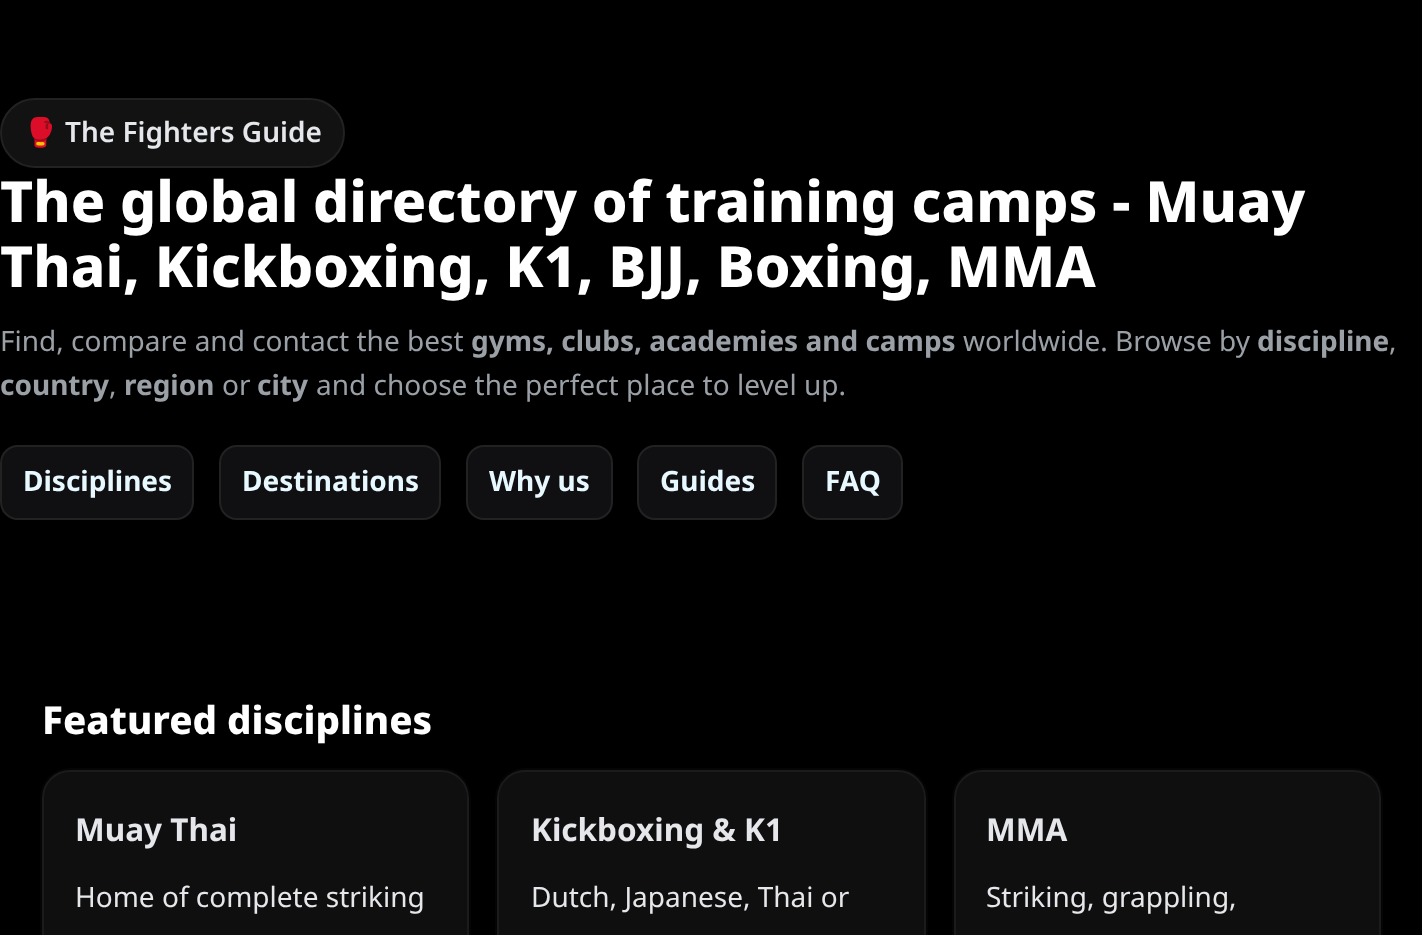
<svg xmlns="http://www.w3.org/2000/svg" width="1422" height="935">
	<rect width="100%" height="100%" fill="#000000" />
	<rect x="1" y="99" width="343" height="68" rx="34" fill="#121212" stroke="#222222" stroke-width="2" />
	<text x="23" y="142" font-family="Noto Color Emoji" font-size="28" font-weight="700" fill="#E5E7EB">🥊</text>
	<text x="65" y="142" font-family="Noto Sans" font-size="28" font-weight="600" fill="#E5E7EB">The Fighters Guide</text>
	<g font-family="Noto Sans" font-size="56.9" font-weight="800" fill="#FFFFFF">
		<text x="0" y="222">The global directory of training camps - Muay</text>
		<text x="0" y="287">Thai, Kickboxing, K1, BJJ, Boxing, MMA</text>
	</g>
	<text x="0" y="351" font-family="Noto Sans" font-size="28" fill="#9AA0A6">Find, compare and contact the best</text>
	<text x="471" y="351" font-family="Noto Sans" font-size="28" font-weight="700" fill="#9AA0A6">gyms, clubs, academies and camps</text>
	<text x="963" y="351" font-family="Noto Sans" font-size="28" fill="#9AA0A6">worldwide. Browse by</text>
	<text x="1257" y="351" font-family="Noto Sans" font-size="28" font-weight="700" fill="#9AA0A6">discipline</text>
	<text x="1389" y="351" font-family="Noto Sans" font-size="28" fill="#9AA0A6">,</text>
	<text x="0" y="395" font-family="Noto Sans" font-size="28" font-weight="700" fill="#9AA0A6">country</text>
	<text x="109" y="395" font-family="Noto Sans" font-size="28" fill="#9AA0A6">,</text>
	<text x="124" y="395" font-family="Noto Sans" font-size="28" font-weight="700" fill="#9AA0A6">region</text>
	<text x="222" y="395" font-family="Noto Sans" font-size="28" fill="#9AA0A6">or</text>
	<text x="257" y="395" font-family="Noto Sans" font-size="28" font-weight="700" fill="#9AA0A6">city</text>
	<text x="316" y="395" font-family="Noto Sans" font-size="28" fill="#9AA0A6">and choose the perfect place to level up.</text>
	<rect x="1" y="446" width="192" height="73" rx="17" fill="#101013" stroke="#222222" stroke-width="2" />
	<text x="23" y="491" font-family="Noto Sans" font-size="28" font-weight="700" fill="#E7F9FF">Disciplines</text>
	<rect x="220" y="446" width="220" height="73" rx="17" fill="#101013" stroke="#222222" stroke-width="2" />
	<text x="242" y="491" font-family="Noto Sans" font-size="28" font-weight="700" fill="#E7F9FF">Destinations</text>
	<rect x="467" y="446" width="145" height="73" rx="17" fill="#101013" stroke="#222222" stroke-width="2" />
	<text x="489" y="491" font-family="Noto Sans" font-size="28" font-weight="700" fill="#E7F9FF">Why us</text>
	<rect x="638" y="446" width="138" height="73" rx="17" fill="#101013" stroke="#222222" stroke-width="2" />
	<text x="660" y="491" font-family="Noto Sans" font-size="28" font-weight="700" fill="#E7F9FF">Guides</text>
	<rect x="803" y="446" width="99" height="73" rx="17" fill="#101013" stroke="#222222" stroke-width="2" />
	<text x="825" y="491" font-family="Noto Sans" font-size="28" font-weight="700" fill="#E7F9FF">FAQ</text>
	<text x="42" y="734" font-family="Noto Sans" font-size="38.5" font-weight="800" fill="#FFFFFF">Featured disciplines</text>
	<rect x="41" y="769" width="429" height="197" rx="29" fill="none" stroke="#050505" stroke-width="2" />
	<rect x="43" y="771" width="425" height="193" rx="27" fill="#0F0F10" stroke="#1B1B1E" stroke-width="2" />
	<text x="75" y="841" font-family="Noto Sans" font-size="31.5" font-weight="700" fill="#E5E7EB">Muay Thai</text>
	<text x="75" y="907" font-family="Noto Sans" font-size="28" fill="#E5E7EB">Home of complete striking</text>
	<rect x="496" y="769" width="431" height="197" rx="29" fill="none" stroke="#050505" stroke-width="2" />
	<rect x="498" y="771" width="427" height="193" rx="27" fill="#0F0F10" stroke="#1B1B1E" stroke-width="2" />
	<text x="531" y="841" font-family="Noto Sans" font-size="31.5" font-weight="700" fill="#E5E7EB">Kickboxing &amp; K1</text>
	<text x="531" y="907" font-family="Noto Sans" font-size="28" fill="#E5E7EB">Dutch, Japanese, Thai or</text>
	<rect x="953" y="769" width="429" height="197" rx="29" fill="none" stroke="#050505" stroke-width="2" />
	<rect x="955" y="771" width="425" height="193" rx="27" fill="#0F0F10" stroke="#1B1B1E" stroke-width="2" />
	<text x="986" y="841" font-family="Noto Sans" font-size="31.5" font-weight="700" fill="#E5E7EB">MMA</text>
	<text x="986" y="907" font-family="Noto Sans" font-size="28" fill="#E5E7EB">Striking, grappling,</text>
</svg>
